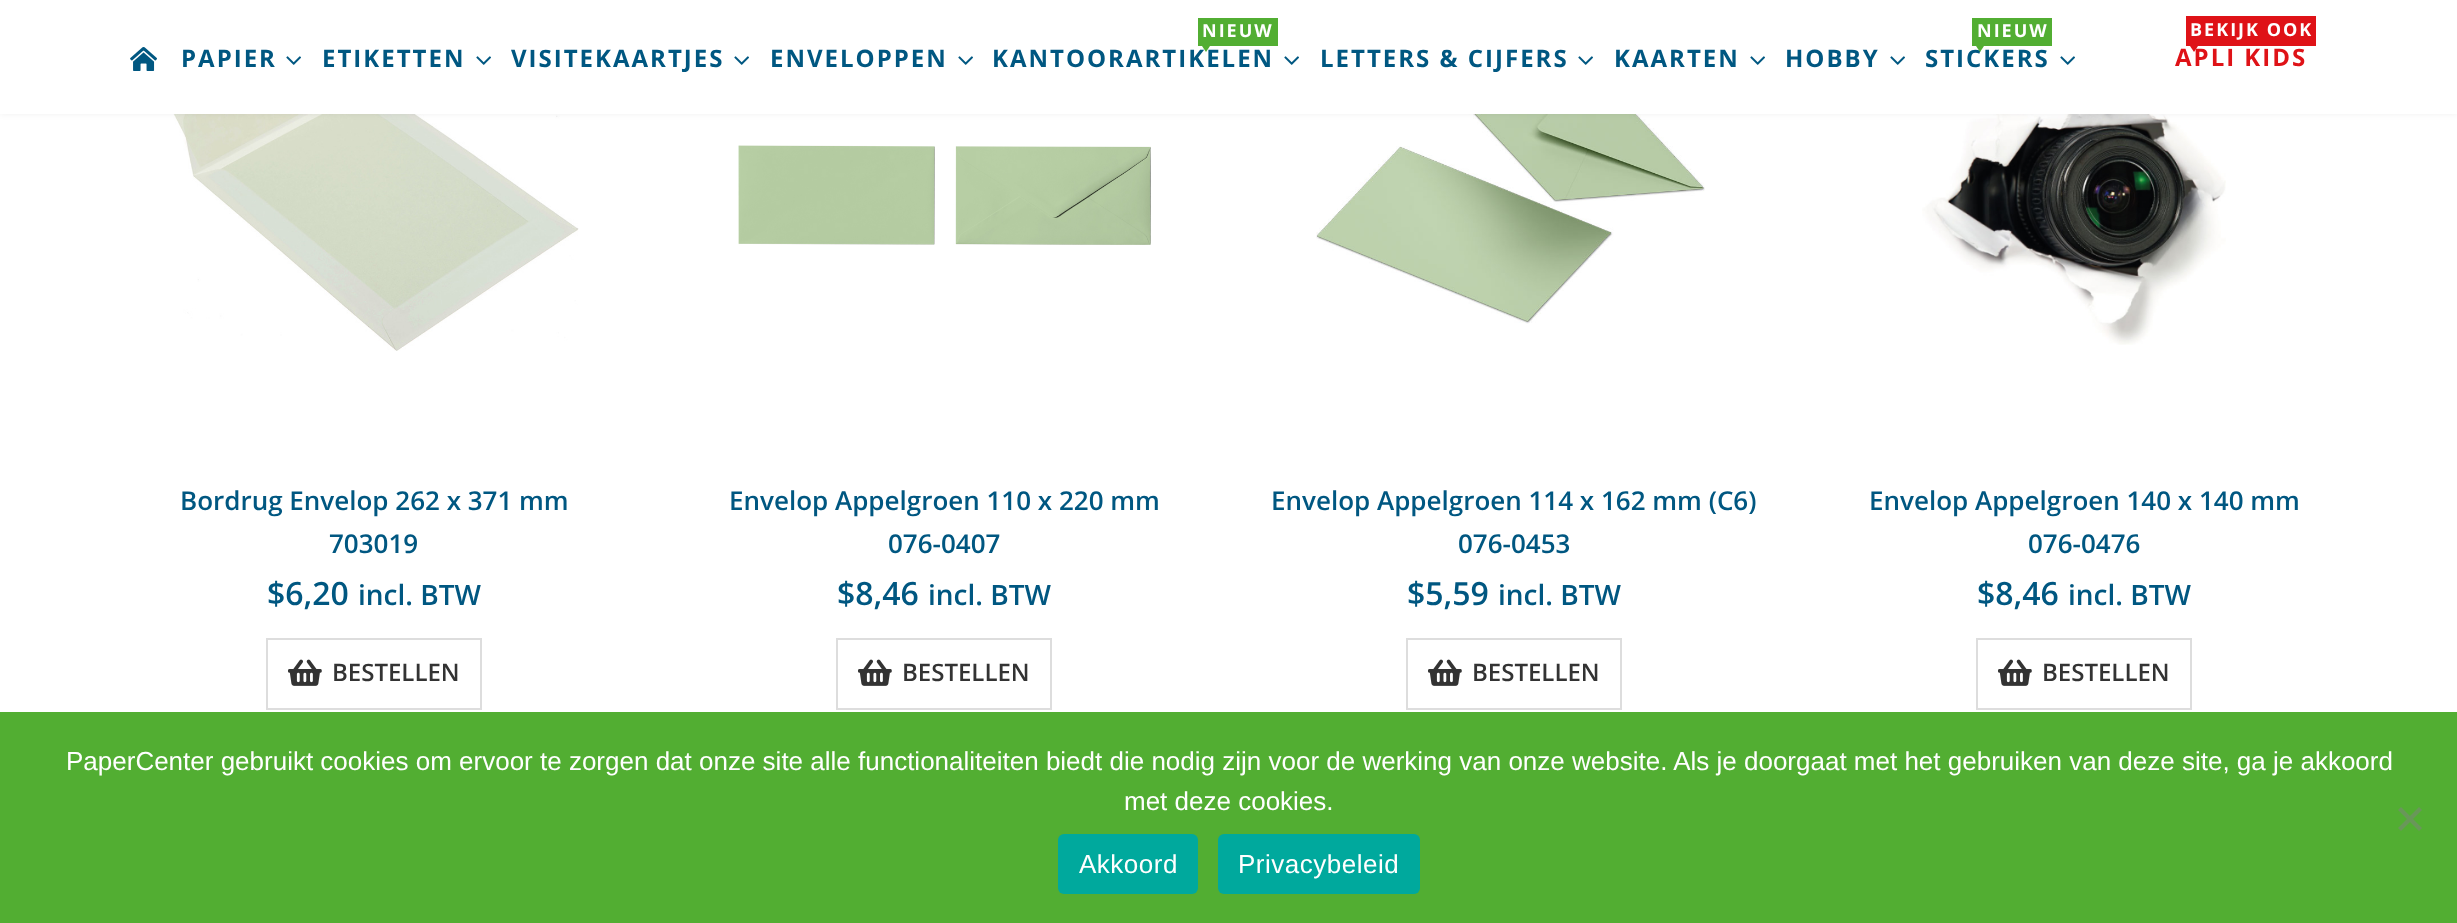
<svg xmlns="http://www.w3.org/2000/svg" width="2457" height="923">
	<rect width="100%" height="100%" fill="#FFFFFF" />
	<image x="173" y="114" width="406" height="237" href="assets/img3.png" />
	<image x="1316" y="114" width="389" height="210" href="assets/img6.png" />
	<image x="1922" y="114" width="304" height="231" href="assets/img7.png" />
	<rect x="0" y="0" width="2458" height="114" fill="#000000" fill-opacity="0.06" filter="blur(3px)" />
	<rect x="0" y="0" width="2457" height="114" fill="#FFFFFF" />
	<image x="130" y="47" width="27" height="24" href="assets/img1.png" />
	<text x="181" y="67" font-family="Open Sans" font-size="24" font-weight="700" letter-spacing="2" fill="#005781">PAPIER</text>
	<image x="286" y="56" width="15" height="9" href="assets/img2.png" />
	<text x="322" y="67" font-family="Open Sans" font-size="24" font-weight="700" letter-spacing="2" fill="#005781">ETIKETTEN</text>
	<image x="476" y="56" width="15" height="9" href="assets/img2.png" />
	<text x="511" y="67" font-family="Open Sans" font-size="24" font-weight="700" letter-spacing="2" fill="#005781">VISITEKAARTJES</text>
	<image x="734" y="56" width="15" height="9" href="assets/img2.png" />
	<text x="770" y="67" font-family="Open Sans" font-size="24" font-weight="700" letter-spacing="2" fill="#005781">ENVELOPPEN</text>
	<image x="958" y="56" width="15" height="9" href="assets/img2.png" />
	<rect x="1198" y="18" width="80" height="28" fill="#52AE32" />
	<text x="1202" y="37" font-family="Open Sans" font-size="18" font-weight="700" letter-spacing="2" fill="#FFFFFF">NIEUW</text>
	<text x="992" y="67" font-family="Open Sans" font-size="24" font-weight="700" letter-spacing="2" fill="#005781">KANTOORARTIKELEN</text>
	<path d="M1202 46H1210L1206 52Z" fill="#52AE32" />
	<image x="1284" y="56" width="15" height="9" href="assets/img2.png" />
	<text x="1320" y="67" font-family="Open Sans" font-size="24" font-weight="700" letter-spacing="2" fill="#005781">LETTERS &amp; CIJFERS</text>
	<image x="1578" y="56" width="15" height="9" href="assets/img2.png" />
	<text x="1614" y="67" font-family="Open Sans" font-size="24" font-weight="700" letter-spacing="2" fill="#005781">KAARTEN</text>
	<image x="1750" y="56" width="15" height="9" href="assets/img2.png" />
	<text x="1785" y="67" font-family="Open Sans" font-size="24" font-weight="700" letter-spacing="2" fill="#005781">HOBBY</text>
	<image x="1890" y="56" width="15" height="9" href="assets/img2.png" />
	<rect x="1972" y="18" width="80" height="28" fill="#52AE32" />
	<text x="1977" y="37" font-family="Open Sans" font-size="18" font-weight="700" letter-spacing="2" fill="#FFFFFF">NIEUW</text>
	<text x="1925" y="67" font-family="Open Sans" font-size="24" font-weight="700" letter-spacing="2" fill="#005781">STICKERS</text>
	<path d="M1976 46H1984L1980 52Z" fill="#52AE32" />
	<image x="2060" y="56" width="15" height="9" href="assets/img2.png" />
	<rect x="2186" y="16" width="130" height="30" fill="#DF1217" />
	<text x="2190" y="36" font-family="Open Sans" font-size="18" font-weight="700" letter-spacing="2" fill="#FFFFFF">BEKIJK OOK</text>
	<path d="M2190 46H2198L2194 52Z" fill="#DF1217" />
	<text x="2175" y="66" font-family="Open Sans" font-size="24" font-weight="700" letter-spacing="2" fill="#DF1217">APLI KIDS</text>
	<g font-family="Open Sans" font-size="26" font-weight="600" fill="#005781">
		<text x="180" y="510">Bordrug Envelop 262 x 371 mm</text>
		<text x="329" y="553">703019</text>
	</g>
	<text x="267" y="605" font-family="Open Sans" font-size="32" font-weight="600" fill="#005781">$6,20</text>
	<text x="358" y="605" font-family="Open Sans" font-size="28" font-weight="600" fill="#005781">incl. BTW</text>
	<rect x="267" y="639" width="214" height="70" fill="none" stroke="#DDDDDD" stroke-width="2" />
	<image x="288" y="659" width="34" height="27" href="assets/img4.png" />
	<text x="332" y="681" font-family="Open Sans" font-size="24" font-weight="600" fill="#333333">BESTELLEN</text>
	<image x="738" y="145" width="413" height="100" href="assets/img5.png" />
	<g font-family="Open Sans" font-size="26" font-weight="600" fill="#005781">
		<text x="729" y="510">Envelop Appelgroen 110 x 220 mm</text>
		<text x="888" y="553">076-0407</text>
	</g>
	<text x="837" y="605" font-family="Open Sans" font-size="32" font-weight="600" fill="#005781">$8,46</text>
	<text x="928" y="605" font-family="Open Sans" font-size="28" font-weight="600" fill="#005781">incl. BTW</text>
	<rect x="837" y="639" width="214" height="70" fill="none" stroke="#DDDDDD" stroke-width="2" />
	<image x="858" y="659" width="34" height="27" href="assets/img4.png" />
	<text x="902" y="681" font-family="Open Sans" font-size="24" font-weight="600" fill="#333333">BESTELLEN</text>
	<g font-family="Open Sans" font-size="26" font-weight="600" fill="#005781">
		<text x="1271" y="510">Envelop Appelgroen 114 x 162 mm (C6)</text>
		<text x="1458" y="553">076-0453</text>
	</g>
	<text x="1407" y="605" font-family="Open Sans" font-size="32" font-weight="600" fill="#005781">$5,59</text>
	<text x="1498" y="605" font-family="Open Sans" font-size="28" font-weight="600" fill="#005781">incl. BTW</text>
	<rect x="1407" y="639" width="214" height="70" fill="none" stroke="#DDDDDD" stroke-width="2" />
	<image x="1428" y="659" width="34" height="27" href="assets/img4.png" />
	<text x="1472" y="681" font-family="Open Sans" font-size="24" font-weight="600" fill="#333333">BESTELLEN</text>
	<g font-family="Open Sans" font-size="26" font-weight="600" fill="#005781">
		<text x="1869" y="510">Envelop Appelgroen 140 x 140 mm</text>
		<text x="2028" y="553">076-0476</text>
	</g>
	<text x="1977" y="605" font-family="Open Sans" font-size="32" font-weight="600" fill="#005781">$8,46</text>
	<text x="2068" y="605" font-family="Open Sans" font-size="28" font-weight="600" fill="#005781">incl. BTW</text>
	<rect x="1977" y="639" width="214" height="70" fill="none" stroke="#DDDDDD" stroke-width="2" />
	<image x="1998" y="659" width="34" height="27" href="assets/img4.png" />
	<text x="2042" y="681" font-family="Open Sans" font-size="24" font-weight="600" fill="#333333">BESTELLEN</text>
	<rect x="0" y="712" width="2457" height="211" fill="#52AE32" />
	<g font-family="Liberation Sans" font-size="26" fill="#FFFFFF">
		<text x="66" y="770">PaperCenter gebruikt cookies om ervoor te zorgen dat onze site alle functionaliteiten biedt die nodig zijn voor de werking van onze website. Als je doorgaat met het gebruiken van deze site, ga je akkoord</text>
		<text x="1124" y="810">met deze cookies.</text>
	</g>
	<path d="M2419 807L2422 810L2401 831L2398 828Z" fill="#699759" />
	<path d="M2398 810L2401 807L2422 828L2419 831Z" fill="#699759" />
	<rect x="1058" y="834" width="140" height="60" rx="6" fill="#00A99D" />
	<text x="1079" y="873" font-family="Liberation Sans" font-size="26" letter-spacing="0.5" fill="#FFFFFF">Akkoord</text>
	<rect x="1218" y="834" width="202" height="60" rx="6" fill="#00A99D" />
	<text x="1238" y="873" font-family="Liberation Sans" font-size="26" letter-spacing="0.5" fill="#FFFFFF">Privacybeleid</text>
</svg>
